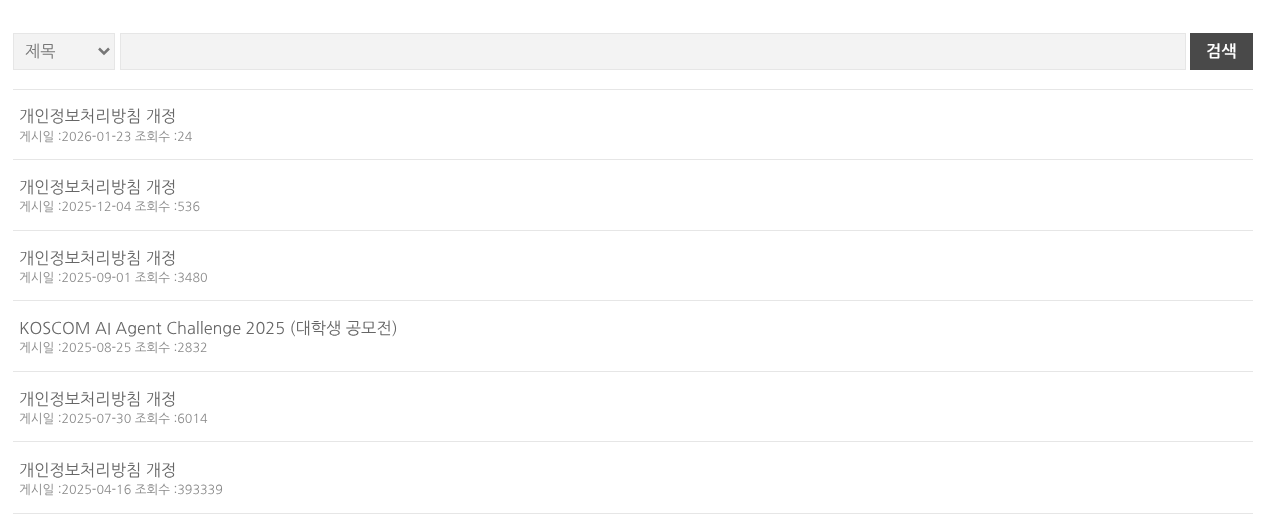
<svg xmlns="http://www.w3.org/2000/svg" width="1264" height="520">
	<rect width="100%" height="100%" fill="#FFFFFF" />
	<rect x="13.5" y="33.5" width="101" height="36" fill="#F3F3F3" stroke="#E6E6E6" />
	<path d="M99 48.5L104 53.5L109 48.5" fill="none" stroke="#777777" stroke-width="2.5" />
	<text x="25" y="57" font-family="NanumGothic" font-size="16.25" fill="#777777">제목</text>
	<rect x="120.5" y="33.5" width="1065" height="36" fill="#F3F3F3" stroke="#E6E6E6" />
	<rect x="1190" y="33" width="63" height="37" fill="#494949" />
	<text x="1206" y="57" font-family="NanumGothic" font-size="16.25" font-weight="700" fill="#FFFFFF">검색</text>
	<rect x="13" y="89" width="1240" height="1" fill="#E6E6E6" />
	<rect x="13" y="159" width="1240" height="1" fill="#E6E6E6" />
	<text x="19" y="122" font-family="NanumGothic" font-size="16.25" fill="#666666">개인정보처리방침 개정</text>
	<text x="19" y="141" font-family="NanumGothic" font-size="12.5" fill="#888888">게시일 :2026-01-23 조회수 :24</text>
	<rect x="13" y="230" width="1240" height="1" fill="#E6E6E6" />
	<text x="19" y="193" font-family="NanumGothic" font-size="16.25" fill="#666666">개인정보처리방침 개정</text>
	<text x="19" y="211" font-family="NanumGothic" font-size="12.5" fill="#888888">게시일 :2025-12-04 조회수 :536</text>
	<rect x="13" y="300" width="1240" height="1" fill="#E6E6E6" />
	<text x="19" y="264" font-family="NanumGothic" font-size="16.25" fill="#666666">개인정보처리방침 개정</text>
	<text x="19" y="282" font-family="NanumGothic" font-size="12.5" fill="#888888">게시일 :2025-09-01 조회수 :3480</text>
	<rect x="13" y="371" width="1240" height="1" fill="#E6E6E6" />
	<text x="19" y="334" font-family="NanumGothic" font-size="16.25" fill="#666666">KOSCOM AI Agent Challenge 2025 (대학생 공모전)</text>
	<text x="19" y="352" font-family="NanumGothic" font-size="12.5" fill="#888888">게시일 :2025-08-25 조회수 :2832</text>
	<rect x="13" y="441" width="1240" height="1" fill="#E6E6E6" />
	<text x="19" y="405" font-family="NanumGothic" font-size="16.25" fill="#666666">개인정보처리방침 개정</text>
	<text x="19" y="423" font-family="NanumGothic" font-size="12.5" fill="#888888">게시일 :2025-07-30 조회수 :6014</text>
	<rect x="13" y="513" width="1240" height="1" fill="#E6E6E6" />
	<text x="19" y="476" font-family="NanumGothic" font-size="16.25" fill="#666666">개인정보처리방침 개정</text>
	<text x="19" y="494" font-family="NanumGothic" font-size="12.5" fill="#888888">게시일 :2025-04-16 조회수 :393339</text>
</svg>
